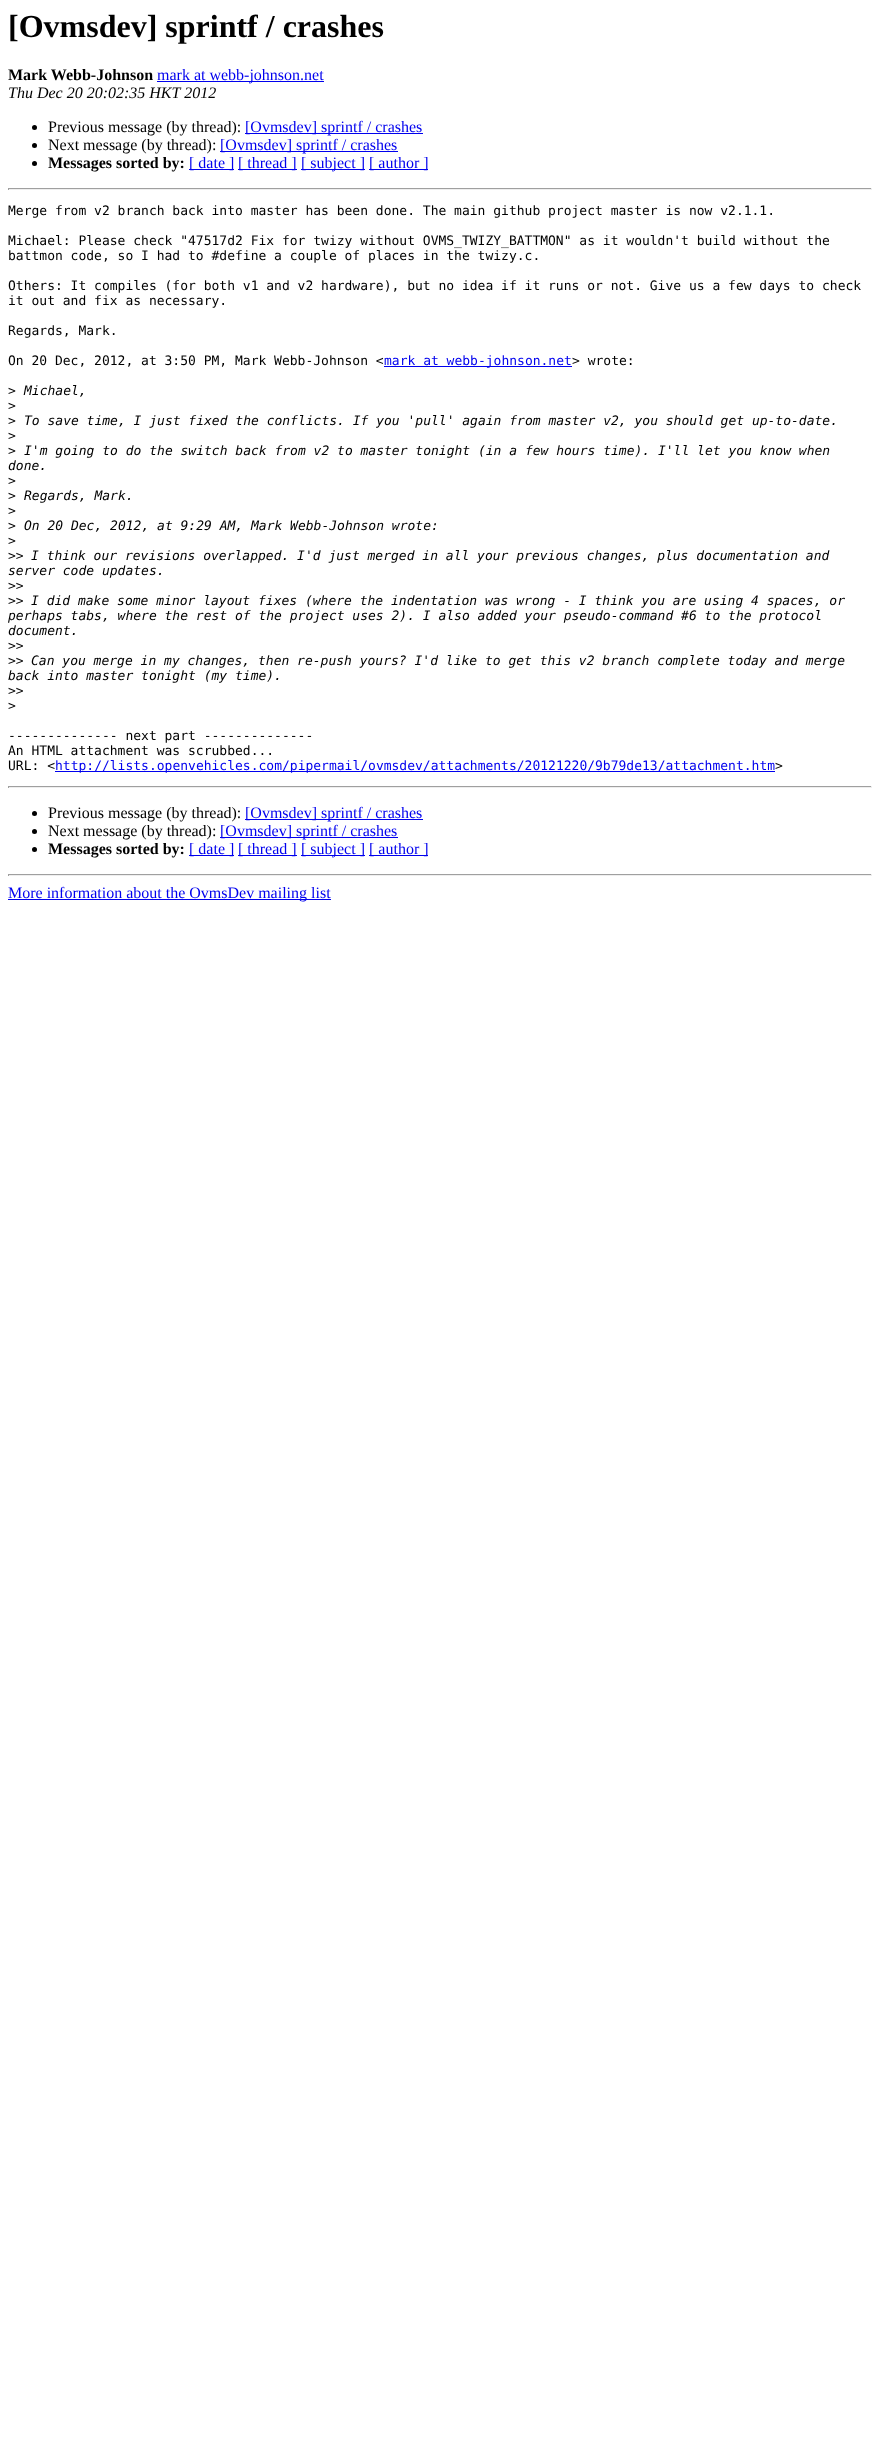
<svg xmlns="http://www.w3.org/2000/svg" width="880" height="2439">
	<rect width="100%" height="100%" fill="#FFFFFF" />
	<text x="8" y="37" font-family="Liberation Serif" font-size="32" font-weight="700" fill="#000000">[Ovmsdev] sprintf / crashes</text>
	<text x="8" y="80" font-family="Liberation Serif" font-size="16" font-weight="700" fill="#000000">Mark Webb-Johnson</text>
	<rect x="157" y="81" width="167" height="1" fill="#0000EE" />
	<text x="157" y="80" font-family="Liberation Serif" font-size="16" fill="#0000EE">mark at webb-johnson.net</text>
	<text x="8" y="98" font-family="Liberation Serif" font-size="16" font-style="italic" fill="#000000">Thu Dec 20 20:02:35 HKT 2012</text>
	<circle cx="34.5" cy="127.5" r="2.5" fill="#000000" />
	<text x="48" y="132" font-family="Liberation Serif" font-size="16" fill="#000000">Previous message (by thread):</text>
	<rect x="245" y="133" width="178" height="1" fill="#0000EE" />
	<text x="245" y="132" font-family="Liberation Serif" font-size="16" fill="#0000EE">[Ovmsdev] sprintf / crashes</text>
	<circle cx="34.5" cy="145.5" r="2.5" fill="#000000" />
	<text x="48" y="150" font-family="Liberation Serif" font-size="16" fill="#000000">Next message (by thread):</text>
	<rect x="220" y="151" width="178" height="1" fill="#0000EE" />
	<text x="220" y="150" font-family="Liberation Serif" font-size="16" fill="#0000EE">[Ovmsdev] sprintf / crashes</text>
	<circle cx="34.5" cy="163.5" r="2.5" fill="#000000" />
	<text x="48" y="168" font-family="Liberation Serif" font-size="16" font-weight="700" fill="#000000">Messages sorted by:</text>
	<rect x="189" y="169" width="45" height="1" fill="#0000EE" />
	<text x="189" y="168" font-family="Liberation Serif" font-size="16" fill="#0000EE">[ date ]</text>
	<rect x="238" y="169" width="59" height="1" fill="#0000EE" />
	<text x="238" y="168" font-family="Liberation Serif" font-size="16" fill="#0000EE">[ thread ]</text>
	<rect x="301" y="169" width="64" height="1" fill="#0000EE" />
	<text x="301" y="168" font-family="Liberation Serif" font-size="16" fill="#0000EE">[ subject ]</text>
	<rect x="369" y="169" width="59" height="1" fill="#0000EE" />
	<text x="369" y="168" font-family="Liberation Serif" font-size="16" fill="#0000EE">[ author ]</text>
	<rect x="8" y="188" width="864" height="1" fill="#9F9F9F" />
	<rect x="871" y="188" width="1" height="2" fill="#EEEEEE" />
	<rect x="8" y="189" width="864" height="1" fill="#EEEEEE" />
	<rect x="8" y="188" width="1" height="2" fill="#9F9F9F" />
	<g font-family="DejaVu Sans Mono" font-size="13" fill="#000000">
		<text x="8" y="215">Merge from v2 branch back into master has been done. The main github project master is now v2.1.1.</text>
		<text x="8" y="245">Michael: Please check "47517d2 Fix for twizy without OVMS_TWIZY_BATTMON" as it wouldn't build without the</text>
		<text x="8" y="260">battmon code, so I had to #define a couple of places in the twizy.c.</text>
		<text x="8" y="290">Others: It compiles (for both v1 and v2 hardware), but no idea if it runs or not. Give us a few days to check</text>
		<text x="8" y="305">it out and fix as necessary.</text>
		<text x="8" y="335">Regards, Mark.</text>
		<text x="8" y="365">On 20 Dec, 2012, at 3:50 PM, Mark Webb-Johnson &lt;</text>
	</g>
	<rect x="384" y="366" width="188" height="1" fill="#0000EE" />
	<text x="384" y="365" font-family="DejaVu Sans Mono" font-size="13" fill="#0000EE">mark at webb-johnson.net</text>
	<g font-family="DejaVu Sans Mono" font-size="13" fill="#000000">
		<text x="572" y="365">&gt; wrote:</text>
		<text x="8" y="395">&gt;</text>
	</g>
	<text x="24" y="395" font-family="DejaVu Sans Mono" font-size="13" font-style="italic" fill="#000000">Michael,</text>
	<g font-family="DejaVu Sans Mono" font-size="13" fill="#000000">
		<text x="8" y="410">&gt;</text>
		<text x="8" y="425">&gt;</text>
	</g>
	<text x="24" y="425" font-family="DejaVu Sans Mono" font-size="13" font-style="italic" fill="#000000">To save time, I just fixed the conflicts. If you 'pull' again from master v2, you should get up-to-date.</text>
	<g font-family="DejaVu Sans Mono" font-size="13" fill="#000000">
		<text x="8" y="440">&gt;</text>
		<text x="8" y="455">&gt;</text>
	</g>
	<g font-family="DejaVu Sans Mono" font-size="13" font-style="italic" fill="#000000">
		<text x="24" y="455">I'm going to do the switch back from v2 to master tonight (in a few hours time). I'll let you know when</text>
		<text x="8" y="470">done.</text>
	</g>
	<g font-family="DejaVu Sans Mono" font-size="13" fill="#000000">
		<text x="8" y="485">&gt;</text>
		<text x="8" y="500">&gt;</text>
	</g>
	<text x="24" y="500" font-family="DejaVu Sans Mono" font-size="13" font-style="italic" fill="#000000">Regards, Mark.</text>
	<g font-family="DejaVu Sans Mono" font-size="13" fill="#000000">
		<text x="8" y="515">&gt;</text>
		<text x="8" y="530">&gt;</text>
	</g>
	<text x="24" y="530" font-family="DejaVu Sans Mono" font-size="13" font-style="italic" fill="#000000">On 20 Dec, 2012, at 9:29 AM, Mark Webb-Johnson wrote:</text>
	<g font-family="DejaVu Sans Mono" font-size="13" fill="#000000">
		<text x="8" y="545">&gt;</text>
		<text x="8" y="560">&gt;&gt;</text>
	</g>
	<g font-family="DejaVu Sans Mono" font-size="13" font-style="italic" fill="#000000">
		<text x="31" y="560">I think our revisions overlapped. I'd just merged in all your previous changes, plus documentation and</text>
		<text x="8" y="575">server code updates.</text>
	</g>
	<g font-family="DejaVu Sans Mono" font-size="13" fill="#000000">
		<text x="8" y="590">&gt;&gt;</text>
		<text x="8" y="605">&gt;&gt;</text>
	</g>
	<g font-family="DejaVu Sans Mono" font-size="13" font-style="italic" fill="#000000">
		<text x="31" y="605">I did make some minor layout fixes (where the indentation was wrong - I think you are using 4 spaces, or</text>
		<text x="8" y="620">perhaps tabs, where the rest of the project uses 2). I also added your pseudo-command #6 to the protocol</text>
		<text x="8" y="635">document.</text>
	</g>
	<g font-family="DejaVu Sans Mono" font-size="13" fill="#000000">
		<text x="8" y="650">&gt;&gt;</text>
		<text x="8" y="665">&gt;&gt;</text>
	</g>
	<g font-family="DejaVu Sans Mono" font-size="13" font-style="italic" fill="#000000">
		<text x="31" y="665">Can you merge in my changes, then re-push yours? I'd like to get this v2 branch complete today and merge</text>
		<text x="8" y="680">back into master tonight (my time).</text>
	</g>
	<g font-family="DejaVu Sans Mono" font-size="13" fill="#000000">
		<text x="8" y="695">&gt;&gt;</text>
		<text x="8" y="710">&gt;</text>
		<text x="8" y="740">-------------- next part --------------</text>
		<text x="8" y="755">An HTML attachment was scrubbed...</text>
		<text x="8" y="770">URL: &lt;</text>
	</g>
	<rect x="55" y="771" width="720" height="1" fill="#0000EE" />
	<text x="55" y="770" font-family="DejaVu Sans Mono" font-size="13" fill="#0000EE">http://lists.openvehicles.com/pipermail/ovmsdev/attachments/20121220/9b79de13/attachment.htm</text>
	<text x="775" y="770" font-family="DejaVu Sans Mono" font-size="13" fill="#000000">&gt;</text>
	<rect x="8" y="786" width="864" height="1" fill="#9F9F9F" />
	<rect x="871" y="786" width="1" height="2" fill="#EEEEEE" />
	<rect x="8" y="787" width="864" height="1" fill="#EEEEEE" />
	<rect x="8" y="786" width="1" height="2" fill="#9F9F9F" />
	<circle cx="34.5" cy="813.5" r="2.5" fill="#000000" />
	<text x="48" y="818" font-family="Liberation Serif" font-size="16" fill="#000000">Previous message (by thread):</text>
	<rect x="245" y="819" width="178" height="1" fill="#0000EE" />
	<text x="245" y="818" font-family="Liberation Serif" font-size="16" fill="#0000EE">[Ovmsdev] sprintf / crashes</text>
	<circle cx="34.5" cy="831.5" r="2.5" fill="#000000" />
	<text x="48" y="836" font-family="Liberation Serif" font-size="16" fill="#000000">Next message (by thread):</text>
	<rect x="220" y="837" width="178" height="1" fill="#0000EE" />
	<text x="220" y="836" font-family="Liberation Serif" font-size="16" fill="#0000EE">[Ovmsdev] sprintf / crashes</text>
	<circle cx="34.5" cy="849.5" r="2.5" fill="#000000" />
	<text x="48" y="854" font-family="Liberation Serif" font-size="16" font-weight="700" fill="#000000">Messages sorted by:</text>
	<rect x="189" y="855" width="45" height="1" fill="#0000EE" />
	<text x="189" y="854" font-family="Liberation Serif" font-size="16" fill="#0000EE">[ date ]</text>
	<rect x="238" y="855" width="59" height="1" fill="#0000EE" />
	<text x="238" y="854" font-family="Liberation Serif" font-size="16" fill="#0000EE">[ thread ]</text>
	<rect x="301" y="855" width="64" height="1" fill="#0000EE" />
	<text x="301" y="854" font-family="Liberation Serif" font-size="16" fill="#0000EE">[ subject ]</text>
	<rect x="369" y="855" width="59" height="1" fill="#0000EE" />
	<text x="369" y="854" font-family="Liberation Serif" font-size="16" fill="#0000EE">[ author ]</text>
	<rect x="8" y="874" width="864" height="1" fill="#9F9F9F" />
	<rect x="871" y="874" width="1" height="2" fill="#EEEEEE" />
	<rect x="8" y="875" width="864" height="1" fill="#EEEEEE" />
	<rect x="8" y="874" width="1" height="2" fill="#9F9F9F" />
	<rect x="8" y="899" width="323" height="1" fill="#0000EE" />
	<text x="8" y="898" font-family="Liberation Serif" font-size="16" fill="#0000EE">More information about the OvmsDev mailing list</text>
</svg>
